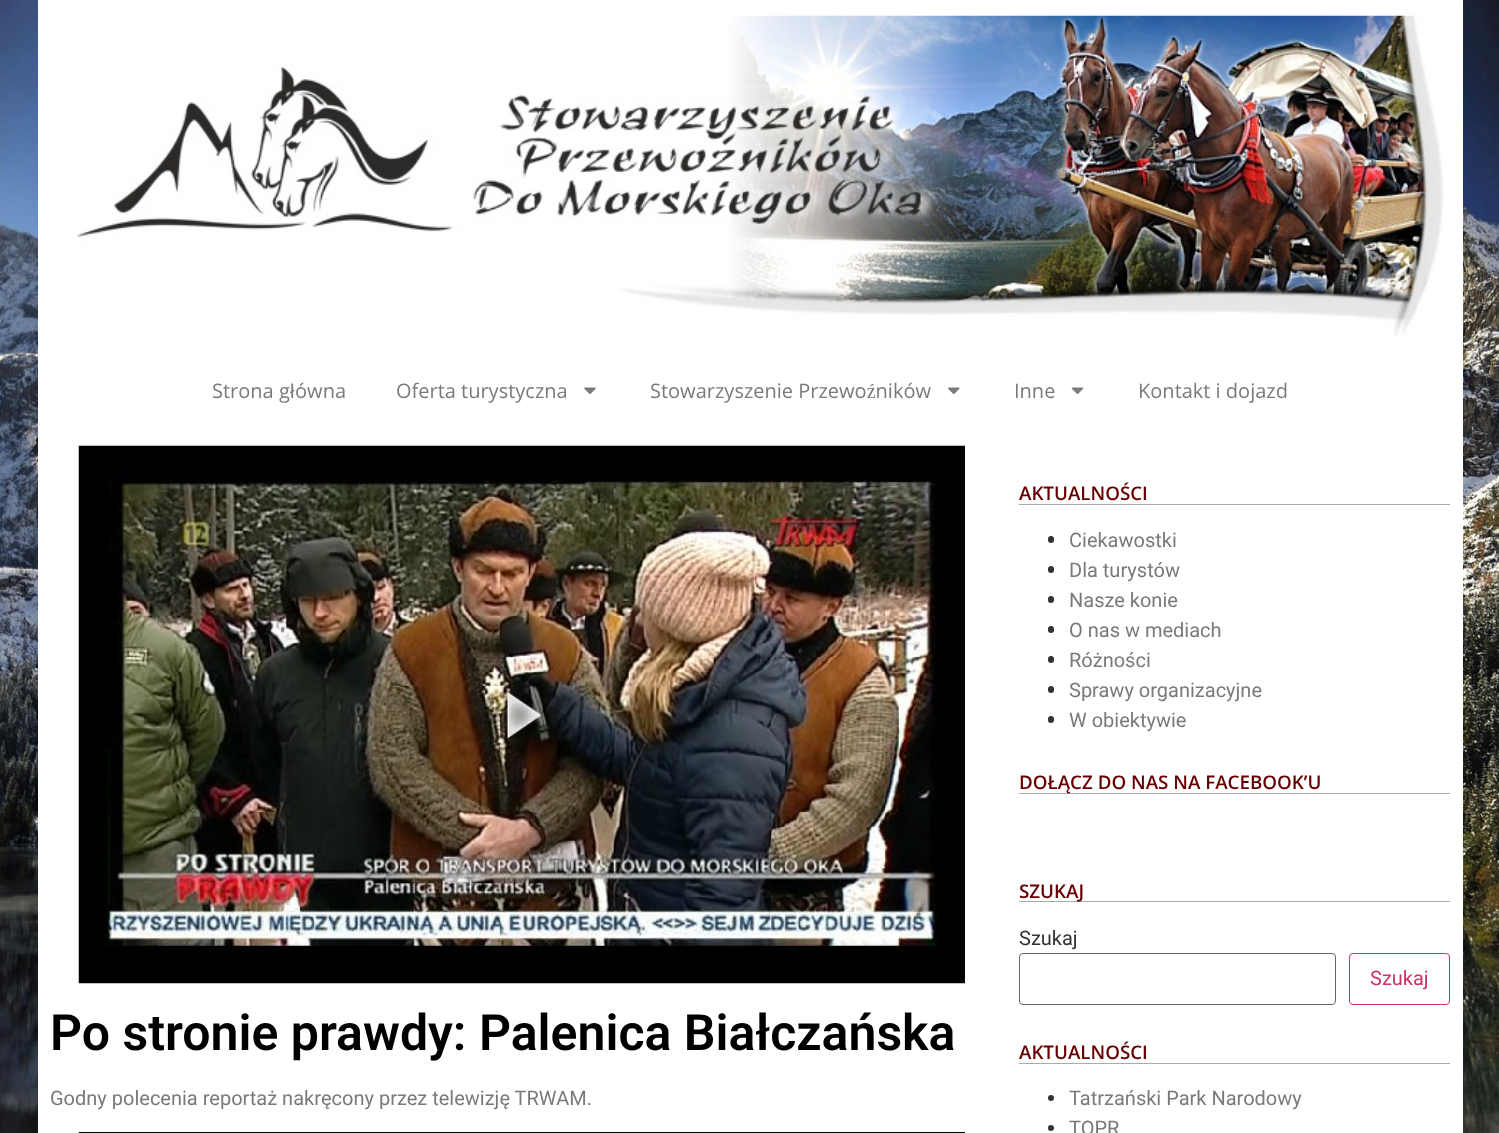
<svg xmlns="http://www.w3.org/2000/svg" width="1499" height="1133">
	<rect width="100%" height="100%" fill="#FFFFFF" />
	<image x="0" y="0" width="1499" height="1133" href="assets/img1.png" />
	<rect x="38" y="0" width="1425" height="434" fill="#FFFFFF" />
	<image x="76" y="15" width="1368" height="322" href="assets/img2.png" />
	<text x="212" y="398" font-family="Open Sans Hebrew" font-size="20" fill="#7A7A7A">Strona g</text>
	<text x="290" y="398" font-family="Liberation Sans" font-size="20" fill="#7A7A7A">ł</text>
	<g font-family="Open Sans Hebrew" font-size="20" fill="#7A7A7A">
		<text x="295" y="398">ówna</text>
		<text x="396" y="398">Oferta turystyczna</text>
	</g>
	<image x="584" y="387" width="12" height="7" href="assets/img3.png" />
	<text x="650" y="398" font-family="Open Sans Hebrew" font-size="20" fill="#7A7A7A">Stowarzyszenie Przewoźników</text>
	<image x="948" y="387" width="12" height="7" href="assets/img4.png" />
	<text x="1014" y="398" font-family="Open Sans Hebrew" font-size="20" fill="#7A7A7A">Inne</text>
	<image x="1071" y="387" width="13" height="7" href="assets/img5.png" />
	<text x="1138" y="398" font-family="Open Sans Hebrew" font-size="20" fill="#7A7A7A">Kontakt i dojazd</text>
	<rect x="38" y="434" width="1425" height="699" fill="#FFFFFF" />
	<image x="78" y="445" width="887" height="539" href="assets/img6.png" />
	<text x="50" y="1050" font-family="Roboto" font-size="50" font-weight="600" fill="#000000">Po stronie prawdy: Palenica Białczańska</text>
	<text x="50" y="1105" font-family="Roboto" font-size="20" fill="#7A7A7A">Godny polecenia reportaż nakręcony przez telewizję TRWAM.</text>
	<image x="78" y="1132" width="887" height="1" href="assets/img7.png" />
	<rect x="1019" y="504" width="431" height="1" fill="#AAAAAA" />
	<text x="1019" y="500" font-family="Open Sans" font-size="18.75" font-weight="600" fill="#660000">AKTUALNOŚCI</text>
	<rect x="1048" y="536" width="6" height="7" rx="3" fill="#333333" />
	<text x="1069" y="547" font-family="Roboto" font-size="20" fill="#7A7A7A">Ciekawostki</text>
	<rect x="1048" y="566" width="6" height="7" rx="3" fill="#333333" />
	<text x="1069" y="577" font-family="Roboto" font-size="20" fill="#7A7A7A">Dla turystów</text>
	<rect x="1048" y="596" width="6" height="7" rx="3" fill="#333333" />
	<text x="1069" y="607" font-family="Roboto" font-size="20" fill="#7A7A7A">Nasze konie</text>
	<rect x="1048" y="626" width="6" height="7" rx="3" fill="#333333" />
	<text x="1069" y="637" font-family="Roboto" font-size="20" fill="#7A7A7A">O nas w mediach</text>
	<rect x="1048" y="656" width="6" height="7" rx="3" fill="#333333" />
	<text x="1069" y="667" font-family="Roboto" font-size="20" fill="#7A7A7A">Różności</text>
	<rect x="1048" y="686" width="6" height="7" rx="3" fill="#333333" />
	<text x="1069" y="697" font-family="Roboto" font-size="20" fill="#7A7A7A">Sprawy organizacyjne</text>
	<rect x="1048" y="716" width="6" height="7" rx="3" fill="#333333" />
	<text x="1069" y="727" font-family="Roboto" font-size="20" fill="#7A7A7A">W obiektywie</text>
	<rect x="1019" y="793" width="431" height="1" fill="#AAAAAA" />
	<text x="1019" y="789" font-family="Open Sans" font-size="18.75" font-weight="600" fill="#660000">DOŁĄCZ DO NAS NA FACEBOOK’U</text>
	<rect x="1019" y="901" width="431" height="1" fill="#AAAAAA" />
	<text x="1019" y="898" font-family="Open Sans" font-size="18.75" font-weight="600" fill="#660000">SZUKAJ</text>
	<text x="1019" y="945" font-family="Roboto" font-size="20" fill="#333333">Szukaj</text>
	<rect x="1019.5" y="953.5" width="316" height="51" rx="3.5" fill="none" stroke="#666666" />
	<rect x="1349.5" y="953.5" width="100" height="51" rx="3.5" fill="none" stroke="#CC3366" />
	<text x="1370" y="985" font-family="Roboto" font-size="20" fill="#CC3366">Szukaj</text>
	<rect x="1019" y="1063" width="431" height="1" fill="#AAAAAA" />
	<text x="1019" y="1059" font-family="Open Sans" font-size="18.75" font-weight="600" fill="#660000">AKTUALNOŚCI</text>
	<circle cx="1051" cy="1098" r="3" fill="#333333" />
	<text x="1069" y="1105" font-family="Roboto" font-size="20" fill="#7A7A7A">Tatrzański Park Narodowy</text>
	<circle cx="1051" cy="1128" r="3" fill="#333333" />
	<text x="1069" y="1135" font-family="Roboto" font-size="20" fill="#7A7A7A">TOPR</text>
</svg>
